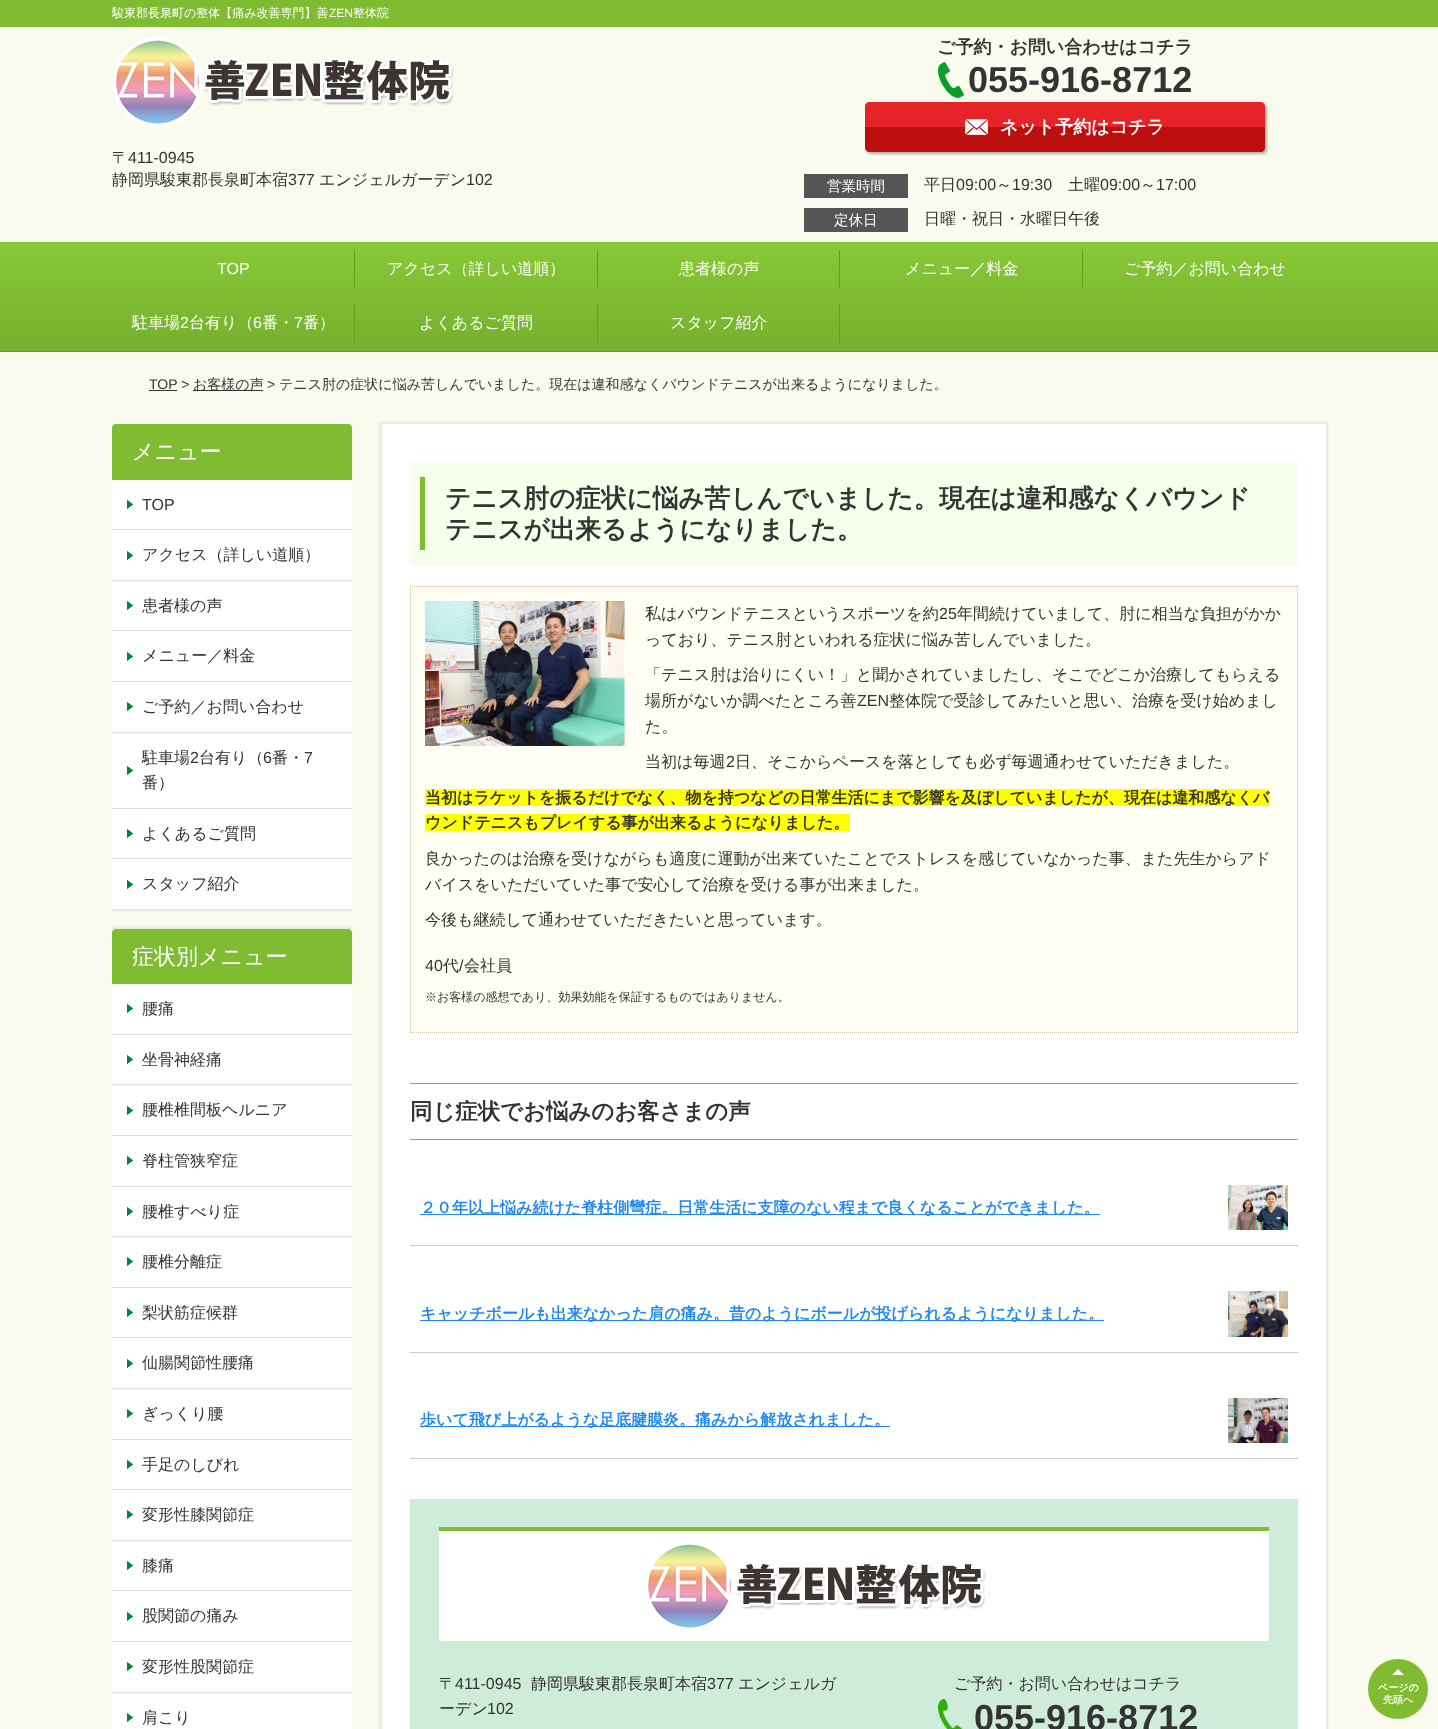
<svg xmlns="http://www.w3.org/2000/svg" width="1438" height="1729">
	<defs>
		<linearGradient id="g1" gradientUnits="userSpaceOnUse" x1="719" y1="242" x2="719" y2="351"><stop offset="0" stop-color="#88C936" /><stop offset="1" stop-color="#76AF2E" /></linearGradient>
		<clipPath id="clip1"><rect x="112" y="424" width="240" height="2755" /></clipPath>
	</defs>
	<rect width="100%" height="100%" fill="#F8FBED" />
	<rect x="0" y="0" width="1438" height="27" fill="#7FBC32" />
	<text x="112" y="17" font-family="WenQuanYi Zen Hei" font-size="12" font-weight="500" fill="#FFFFFF">駿東郡長泉町の整体【痛み改善専門】善</text>
	<text x="329" y="17" font-family="Liberation Sans" font-size="12" fill="#FFFFFF">ZEN</text>
	<text x="353" y="17" font-family="WenQuanYi Zen Hei" font-size="12" font-weight="500" fill="#FFFFFF">整体院</text>
	<image x="112" y="37" width="342" height="90" href="assets/img1.png" />
	<text x="112" y="163" font-family="WenQuanYi Zen Hei" font-size="16" font-weight="500" fill="#333333">〒</text>
	<text x="128" y="163" font-family="Liberation Sans" font-size="16" fill="#333333">411-0945</text>
	<text x="112" y="185" font-family="WenQuanYi Zen Hei" font-size="16" font-weight="500" fill="#333333">静岡県駿東郡長泉町本宿</text>
	<text x="288" y="185" font-family="Liberation Sans" font-size="16" fill="#333333">377</text>
	<text x="319" y="185" font-family="WenQuanYi Zen Hei" font-size="16" font-weight="500" fill="#333333">エンジェルガーデン</text>
	<text x="466" y="185" font-family="Liberation Sans" font-size="16" fill="#333333">102</text>
	<text x="937" y="53" font-family="WenQuanYi Zen Hei" font-size="18" font-weight="700" fill="#333333">ご予約・お問い合わせはコチラ</text>
	<image x="938" y="62" width="26" height="36" href="assets/img2.png" />
	<text x="968" y="92" font-family="Liberation Sans" font-size="36" font-weight="700" fill="#333333">055-916-8712</text>
	<rect x="867" y="104" width="400" height="50" rx="4" fill="#000000" fill-opacity="0.3" filter="blur(1.5px)" />
	<path d="M869 102H1261C1263 102 1265 104 1265 106V127H865V106C865 104 867 102 869 102Z" fill="#E52429" />
	<path d="M865 127H1265V148C1265 150 1263 152 1261 152H869C867 152 865 150 865 148Z" fill="#BB0F0F" />
	<image x="965" y="119" width="23" height="16" href="assets/img3.png" />
	<text x="1000" y="133" font-family="WenQuanYi Zen Hei" font-size="18" font-weight="700" fill="#FFFFFF">ネット予約はコチラ</text>
	<rect x="804" y="174" width="104" height="24" fill="#555555" />
	<text x="827" y="191" font-family="WenQuanYi Zen Hei" font-size="14.5" font-weight="500" fill="#FFFFFF">営業時間</text>
	<text x="924" y="190" font-family="WenQuanYi Zen Hei" font-size="16" font-weight="500" fill="#333333">平日</text>
	<text x="956" y="190" font-family="Liberation Sans" font-size="16" fill="#333333">09:00</text>
	<text x="996" y="190" font-family="WenQuanYi Zen Hei" font-size="16" font-weight="500" fill="#333333">～</text>
	<text x="1012" y="190" font-family="Liberation Sans" font-size="16" fill="#333333">19:30</text>
	<text x="1068" y="190" font-family="WenQuanYi Zen Hei" font-size="16" font-weight="500" fill="#333333">土曜</text>
	<text x="1100" y="190" font-family="Liberation Sans" font-size="16" fill="#333333">09:00</text>
	<text x="1140" y="190" font-family="WenQuanYi Zen Hei" font-size="16" font-weight="500" fill="#333333">～</text>
	<text x="1156" y="190" font-family="Liberation Sans" font-size="16" fill="#333333">17:00</text>
	<rect x="804" y="208" width="104" height="24" fill="#555555" />
	<text x="834" y="225" font-family="WenQuanYi Zen Hei" font-size="14.5" font-weight="500" fill="#FFFFFF">定休日</text>
	<text x="924" y="224" font-family="WenQuanYi Zen Hei" font-size="16" font-weight="500" fill="#333333">日曜・祝日・水曜日午後</text>
	<rect x="0" y="242" width="1438" height="109" fill="url(#g1)" />
	<rect x="0" y="351" width="1438" height="1" fill="#639C19" />
	<text x="217" y="274" font-family="Liberation Sans" font-size="16" fill="#FFFFFF">TOP</text>
	<rect x="354" y="250" width="1" height="38" fill="#659E1A" />
	<text x="387" y="274" font-family="WenQuanYi Zen Hei" font-size="16" font-weight="500" fill="#FFFFFF">アクセス（詳しい道順）</text>
	<rect x="597" y="250" width="1" height="38" fill="#659E1A" />
	<text x="679" y="274" font-family="WenQuanYi Zen Hei" font-size="16" font-weight="500" fill="#FFFFFF">患者様の声</text>
	<rect x="839" y="250" width="1" height="38" fill="#659E1A" />
	<text x="905" y="274" font-family="WenQuanYi Zen Hei" font-size="16" font-weight="500" fill="#FFFFFF">メニュー／料金</text>
	<rect x="1082" y="250" width="1" height="38" fill="#659E1A" />
	<g font-family="WenQuanYi Zen Hei" font-size="16" font-weight="500" fill="#FFFFFF">
		<text x="1124" y="274">ご予約／お問い合わせ</text>
		<text x="132" y="328">駐車場</text>
	</g>
	<text x="180" y="328" font-family="Liberation Sans" font-size="16" fill="#FFFFFF">2</text>
	<text x="189" y="328" font-family="WenQuanYi Zen Hei" font-size="16" font-weight="500" fill="#FFFFFF">台有り（</text>
	<text x="253" y="328" font-family="Liberation Sans" font-size="16" fill="#FFFFFF">6</text>
	<text x="262" y="328" font-family="WenQuanYi Zen Hei" font-size="16" font-weight="500" fill="#FFFFFF">番・</text>
	<text x="294" y="328" font-family="Liberation Sans" font-size="16" fill="#FFFFFF">7</text>
	<text x="303" y="328" font-family="WenQuanYi Zen Hei" font-size="16" font-weight="500" fill="#FFFFFF">番）</text>
	<rect x="354" y="304" width="1" height="39" fill="#659E1A" />
	<text x="419" y="328" font-family="WenQuanYi Zen Hei" font-size="16" font-weight="500" fill="#FFFFFF">よくあるご質問</text>
	<rect x="597" y="304" width="1" height="39" fill="#659E1A" />
	<text x="670" y="328" font-family="WenQuanYi Zen Hei" font-size="16" font-weight="500" fill="#FFFFFF">スタッフ紹介</text>
	<rect x="839" y="304" width="1" height="39" fill="#659E1A" />
	<text x="149" y="389" font-family="Liberation Sans" font-size="14" fill="#333333">TOP &gt;</text>
	<rect x="149" y="390" width="28" height="1" fill="#333333" />
	<rect x="193" y="390" width="70" height="1" fill="#333333" />
	<text x="193" y="389" font-family="WenQuanYi Zen Hei" font-size="14" font-weight="500" fill="#333333">お客様の声</text>
	<text x="267" y="389" font-family="Liberation Sans" font-size="14" fill="#333333">&gt;</text>
	<text x="279" y="389" font-family="WenQuanYi Zen Hei" font-size="14" font-weight="500" fill="#333333">テニス肘の症状に悩み苦しんでいました。現在は違和感なくバウンドテニスが出来るようになりました。</text>
	<g clip-path="url(#clip1)">
		<rect x="110" y="422" width="244" height="489" fill="#000000" fill-opacity="0.08" filter="blur(1.5px)" />
	</g>
	<path d="M116 424H348C350 424 352 426 352 428V480H112V428C112 426 114 424 116 424Z" fill="#7FBC32" />
	<text x="132" y="459" font-family="WenQuanYi Zen Hei" font-size="22" font-weight="500" fill="#FFFFFF">メニュー</text>
	<rect x="112" y="480" width="240" height="429" fill="#FFFFFF" />
	<image x="127" y="500" width="6" height="9" href="assets/img4.png" />
	<text x="142" y="510" font-family="Liberation Sans" font-size="16" fill="#333333">TOP</text>
	<rect x="112" y="529" width="240" height="1" fill="#DCDCDC" />
	<image x="127" y="551" width="6" height="9" href="assets/img4.png" />
	<text x="142" y="560" font-family="WenQuanYi Zen Hei" font-size="16" font-weight="500" fill="#333333">アクセス（詳しい道順）</text>
	<rect x="112" y="580" width="240" height="1" fill="#DCDCDC" />
	<image x="127" y="601" width="6" height="9" href="assets/img4.png" />
	<text x="142" y="611" font-family="WenQuanYi Zen Hei" font-size="16" font-weight="500" fill="#333333">患者様の声</text>
	<rect x="112" y="630" width="240" height="1" fill="#DCDCDC" />
	<image x="127" y="652" width="6" height="9" href="assets/img4.png" />
	<text x="142" y="661" font-family="WenQuanYi Zen Hei" font-size="16" font-weight="500" fill="#333333">メニュー／料金</text>
	<rect x="112" y="681" width="240" height="1" fill="#DCDCDC" />
	<image x="127" y="702" width="6" height="9" href="assets/img4.png" />
	<text x="142" y="712" font-family="WenQuanYi Zen Hei" font-size="16" font-weight="500" fill="#333333">ご予約／お問い合わせ</text>
	<rect x="112" y="732" width="240" height="1" fill="#DCDCDC" />
	<image x="127" y="766" width="6" height="9" href="assets/img4.png" />
	<text x="142" y="763" font-family="WenQuanYi Zen Hei" font-size="16" font-weight="500" fill="#333333">駐車場</text>
	<text x="190" y="763" font-family="Liberation Sans" font-size="16" fill="#333333">2</text>
	<text x="199" y="763" font-family="WenQuanYi Zen Hei" font-size="16" font-weight="500" fill="#333333">台有り（</text>
	<text x="263" y="763" font-family="Liberation Sans" font-size="16" fill="#333333">6</text>
	<text x="272" y="763" font-family="WenQuanYi Zen Hei" font-size="16" font-weight="500" fill="#333333">番・</text>
	<text x="304" y="763" font-family="Liberation Sans" font-size="16" fill="#333333">7</text>
	<text x="142" y="788" font-family="WenQuanYi Zen Hei" font-size="16" font-weight="500" fill="#333333">番）</text>
	<rect x="112" y="808" width="240" height="1" fill="#DCDCDC" />
	<image x="127" y="829" width="6" height="9" href="assets/img4.png" />
	<text x="142" y="839" font-family="WenQuanYi Zen Hei" font-size="16" font-weight="500" fill="#333333">よくあるご質問</text>
	<rect x="112" y="858" width="240" height="1" fill="#DCDCDC" />
	<image x="127" y="880" width="6" height="9" href="assets/img4.png" />
	<text x="142" y="889" font-family="WenQuanYi Zen Hei" font-size="16" font-weight="500" fill="#333333">スタッフ紹介</text>
	<g clip-path="url(#clip1)">
		<rect x="110" y="927" width="244" height="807" fill="#000000" fill-opacity="0.08" filter="blur(1.5px)" />
	</g>
	<path d="M116 929H348C350 929 352 931 352 933V984H112V933C112 931 114 929 116 929Z" fill="#7FBC32" />
	<text x="132" y="964" font-family="WenQuanYi Zen Hei" font-size="22" font-weight="500" fill="#FFFFFF">症状別メニュー</text>
	<rect x="112" y="984" width="240" height="745" fill="#FFFFFF" />
	<image x="127" y="1004" width="6" height="9" href="assets/img4.png" />
	<text x="142" y="1014" font-family="WenQuanYi Zen Hei" font-size="16" font-weight="500" fill="#333333">腰痛</text>
	<rect x="112" y="1034" width="240" height="1" fill="#DCDCDC" />
	<image x="127" y="1055" width="6" height="9" href="assets/img4.png" />
	<text x="142" y="1065" font-family="WenQuanYi Zen Hei" font-size="16" font-weight="500" fill="#333333">坐骨神経痛</text>
	<rect x="112" y="1084" width="240" height="1" fill="#DCDCDC" />
	<image x="127" y="1106" width="6" height="9" href="assets/img4.png" />
	<text x="142" y="1115" font-family="WenQuanYi Zen Hei" font-size="16" font-weight="500" fill="#333333">腰椎椎間板ヘルニア</text>
	<rect x="112" y="1135" width="240" height="1" fill="#DCDCDC" />
	<image x="127" y="1156" width="6" height="9" href="assets/img4.png" />
	<text x="142" y="1166" font-family="WenQuanYi Zen Hei" font-size="16" font-weight="500" fill="#333333">脊柱管狭窄症</text>
	<rect x="112" y="1186" width="240" height="1" fill="#DCDCDC" />
	<image x="127" y="1207" width="6" height="9" href="assets/img4.png" />
	<text x="142" y="1217" font-family="WenQuanYi Zen Hei" font-size="16" font-weight="500" fill="#333333">腰椎すべり症</text>
	<rect x="112" y="1236" width="240" height="1" fill="#DCDCDC" />
	<image x="127" y="1257" width="6" height="9" href="assets/img4.png" />
	<text x="142" y="1267" font-family="WenQuanYi Zen Hei" font-size="16" font-weight="500" fill="#333333">腰椎分離症</text>
	<rect x="112" y="1287" width="240" height="1" fill="#DCDCDC" />
	<image x="127" y="1308" width="6" height="9" href="assets/img4.png" />
	<text x="142" y="1318" font-family="WenQuanYi Zen Hei" font-size="16" font-weight="500" fill="#333333">梨状筋症候群</text>
	<rect x="112" y="1337" width="240" height="1" fill="#DCDCDC" />
	<image x="127" y="1359" width="6" height="9" href="assets/img4.png" />
	<text x="142" y="1368" font-family="WenQuanYi Zen Hei" font-size="16" font-weight="500" fill="#333333">仙腸関節性腰痛</text>
	<rect x="112" y="1388" width="240" height="1" fill="#DCDCDC" />
	<image x="127" y="1409" width="6" height="9" href="assets/img4.png" />
	<text x="142" y="1419" font-family="WenQuanYi Zen Hei" font-size="16" font-weight="500" fill="#333333">ぎっくり腰</text>
	<rect x="112" y="1439" width="240" height="1" fill="#DCDCDC" />
	<image x="127" y="1460" width="6" height="9" href="assets/img4.png" />
	<text x="142" y="1470" font-family="WenQuanYi Zen Hei" font-size="16" font-weight="500" fill="#333333">手足のしびれ</text>
	<rect x="112" y="1489" width="240" height="1" fill="#DCDCDC" />
	<image x="127" y="1510" width="6" height="9" href="assets/img4.png" />
	<text x="142" y="1520" font-family="WenQuanYi Zen Hei" font-size="16" font-weight="500" fill="#333333">変形性膝関節症</text>
	<rect x="112" y="1540" width="240" height="1" fill="#DCDCDC" />
	<image x="127" y="1561" width="6" height="9" href="assets/img4.png" />
	<text x="142" y="1571" font-family="WenQuanYi Zen Hei" font-size="16" font-weight="500" fill="#333333">膝痛</text>
	<rect x="112" y="1590" width="240" height="1" fill="#DCDCDC" />
	<image x="127" y="1612" width="6" height="9" href="assets/img4.png" />
	<text x="142" y="1621" font-family="WenQuanYi Zen Hei" font-size="16" font-weight="500" fill="#333333">股関節の痛み</text>
	<rect x="112" y="1641" width="240" height="1" fill="#DCDCDC" />
	<image x="127" y="1662" width="6" height="9" href="assets/img4.png" />
	<text x="142" y="1672" font-family="WenQuanYi Zen Hei" font-size="16" font-weight="500" fill="#333333">変形性股関節症</text>
	<rect x="112" y="1692" width="240" height="1" fill="#DCDCDC" />
	<image x="127" y="1713" width="6" height="9" href="assets/img4.png" />
	<text x="142" y="1723" font-family="WenQuanYi Zen Hei" font-size="16" font-weight="500" fill="#333333">肩こり</text>
	<rect x="380" y="422" width="948" height="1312" fill="#000000" fill-opacity="0.08" filter="blur(1.5px)" />
	<rect x="382" y="424" width="944" height="1305" fill="#FFFFFF" />
	<rect x="410" y="461" width="888" height="105" fill="#F6FFEB" />
	<rect x="420" y="477" width="5" height="73" fill="#7FBC32" />
	<g font-family="WenQuanYi Zen Hei" font-size="25.6" font-weight="700" fill="#333333">
		<text x="445" y="507">テニス肘の症状に悩み苦しんでいました。現在は違和感なくバウンド</text>
		<text x="445" y="538">テニスが出来るようになりました。</text>
	</g>
	<rect x="410" y="586" width="888" height="447" fill="#FFFFF3" />
	<path d="M410 586.5H1298" fill="none" stroke="#D4C09D" stroke-dasharray="1 1" />
	<path d="M1297.5 586V1033" fill="none" stroke="#D4C09D" stroke-dasharray="1 1" />
	<path d="M410 1032.5H1298" fill="none" stroke="#D4C09D" stroke-dasharray="1 1" />
	<path d="M410.5 586V1033" fill="none" stroke="#D4C09D" stroke-dasharray="1 1" />
	<image x="425" y="601" width="200" height="145" href="assets/img5.png" />
	<text x="645" y="619" font-family="WenQuanYi Zen Hei" font-size="16" font-weight="500" fill="#333333">私はバウンドテニスというスポーツを約</text>
	<text x="939" y="619" font-family="Liberation Sans" font-size="16" fill="#333333">25</text>
	<g font-family="WenQuanYi Zen Hei" font-size="16" font-weight="500" fill="#333333">
		<text x="957" y="619">年間続けていまして、肘に相当な負担がかか</text>
		<text x="645" y="645">っており、テニス肘といわれる症状に悩み苦しんでいました。</text>
		<text x="645" y="680">「テニス肘は治りにくい！」と聞かされていましたし、そこでどこか治療してもらえる</text>
		<text x="645" y="706">場所がないか調べたところ善</text>
	</g>
	<text x="857" y="706" font-family="Liberation Sans" font-size="16" fill="#333333">ZEN</text>
	<g font-family="WenQuanYi Zen Hei" font-size="16" font-weight="500" fill="#333333">
		<text x="889" y="706">整体院で受診してみたいと思い、治療を受け始めまし</text>
		<text x="645" y="732">た。</text>
		<text x="645" y="767">当初は毎週</text>
	</g>
	<text x="726" y="767" font-family="Liberation Sans" font-size="16" fill="#333333">2</text>
	<text x="735" y="767" font-family="WenQuanYi Zen Hei" font-size="16" font-weight="500" fill="#333333">日、そこからペースを落としても必ず毎週通わせていただきました。</text>
	<rect x="425" y="789" width="845" height="17" fill="#FFFF00" />
	<text x="425" y="803" font-family="WenQuanYi Zen Hei" font-size="16" font-weight="700" fill="#333333">当初はラケットを振るだけでなく、物を持つなどの日常生活にまで影響を及ぼしていましたが、現在は違和感なくバ</text>
	<rect x="425" y="814" width="425" height="17" fill="#FFFF00" />
	<text x="425" y="828" font-family="WenQuanYi Zen Hei" font-size="16" font-weight="700" fill="#333333">ウンドテニスもプレイする事が出来るようになりました。</text>
	<g font-family="WenQuanYi Zen Hei" font-size="16" font-weight="500" fill="#333333">
		<text x="425" y="864">良かったのは治療を受けながらも適度に運動が出来ていたことでストレスを感じていなかった事、また先生からアド</text>
		<text x="425" y="890">バイスをいただいていた事で安心して治療を受ける事が出来ました。</text>
		<text x="425" y="925">今後も継続して通わせていただきたいと思っています。</text>
	</g>
	<text x="425" y="971" font-family="Liberation Sans" font-size="16" fill="#333333">40</text>
	<text x="443" y="971" font-family="WenQuanYi Zen Hei" font-size="16" font-weight="500" fill="#333333">代</text>
	<text x="459" y="971" font-family="Liberation Sans" font-size="16" fill="#333333">/</text>
	<text x="464" y="971" font-family="WenQuanYi Zen Hei" font-size="16" font-weight="500" fill="#333333">会社員</text>
	<text x="425" y="1001" font-family="WenQuanYi Zen Hei" font-size="12" font-weight="500" fill="#333333">※お客様の感想であり、効果効能を保証するものではありません。</text>
	<rect x="410" y="1083" width="888" height="1" fill="#7FBC32" />
	<rect x="410" y="1139" width="888" height="1" fill="#7FBC32" />
	<text x="410" y="1119" font-family="WenQuanYi Zen Hei" font-size="22.4" font-weight="700" fill="#333333">同じ症状でお悩みのお客さまの声</text>
	<rect x="410" y="1245" width="888" height="1" fill="#CCCCCC" />
	<rect x="420" y="1214" width="680" height="1" fill="#2288EE" />
	<text x="420" y="1213" font-family="WenQuanYi Zen Hei" font-size="16" font-weight="700" fill="#2288EE">２０年以上悩み続けた脊柱側彎症。日常生活に支障のない程まで良くなることができました。</text>
	<image x="1228" y="1185" width="60" height="45" href="assets/img6.png" />
	<rect x="410" y="1352" width="888" height="1" fill="#CCCCCC" />
	<rect x="420" y="1320" width="684" height="1" fill="#2288EE" />
	<text x="420" y="1319" font-family="WenQuanYi Zen Hei" font-size="16" font-weight="700" fill="#2288EE">キャッチボールも出来なかった肩の痛み。昔のようにボールが投げられるようになりました。</text>
	<image x="1228" y="1291" width="60" height="46" href="assets/img7.png" />
	<rect x="410" y="1458" width="888" height="1" fill="#CCCCCC" />
	<rect x="420" y="1426" width="470" height="1" fill="#2288EE" />
	<text x="420" y="1425" font-family="WenQuanYi Zen Hei" font-size="16" font-weight="700" fill="#2288EE">歩いて飛び上がるような足底腱膜炎。痛みから解放されました。</text>
	<image x="1228" y="1398" width="60" height="45" href="assets/img8.png" />
	<rect x="410" y="1499" width="888" height="230" fill="#CFEBD9" />
	<rect x="439" y="1531" width="830" height="110" fill="#FFFFFF" />
	<rect x="439" y="1527" width="830" height="4" fill="#7FBC32" />
	<image x="648" y="1544" width="338" height="84" href="assets/img9.png" />
	<text x="439" y="1689" font-family="WenQuanYi Zen Hei" font-size="16" font-weight="500" fill="#333333">〒</text>
	<text x="455" y="1689" font-family="Liberation Sans" font-size="16" fill="#333333">411-0945</text>
	<text x="531" y="1689" font-family="WenQuanYi Zen Hei" font-size="16" font-weight="500" fill="#333333">静岡県駿東郡長泉町本宿</text>
	<text x="707" y="1689" font-family="Liberation Sans" font-size="16" fill="#333333">377</text>
	<g font-family="WenQuanYi Zen Hei" font-size="16" font-weight="500" fill="#333333">
		<text x="738" y="1689">エンジェルガ</text>
		<text x="439" y="1714">ーデン</text>
	</g>
	<text x="487" y="1714" font-family="Liberation Sans" font-size="16" fill="#333333">102</text>
	<text x="954" y="1689" font-family="WenQuanYi Zen Hei" font-size="16" font-weight="500" fill="#333333">ご予約・お問い合わせはコチラ</text>
	<image x="938" y="1699" width="25" height="30" href="assets/img10.png" />
	<text x="974" y="1730" font-family="Liberation Sans" font-size="36" font-weight="700" fill="#333333">055-916-8712</text>
	<circle cx="1398" cy="1689" r="30" fill="#7FBC32" />
	<path d="M1404 1675H1392L1398 1669Z" fill="#FFFFFF" />
	<g font-family="WenQuanYi Zen Hei" font-size="10" font-weight="700" fill="#FFFFFF">
		<text x="1378" y="1691">ページの</text>
		<text x="1383" y="1703">先頭へ</text>
	</g>
</svg>
